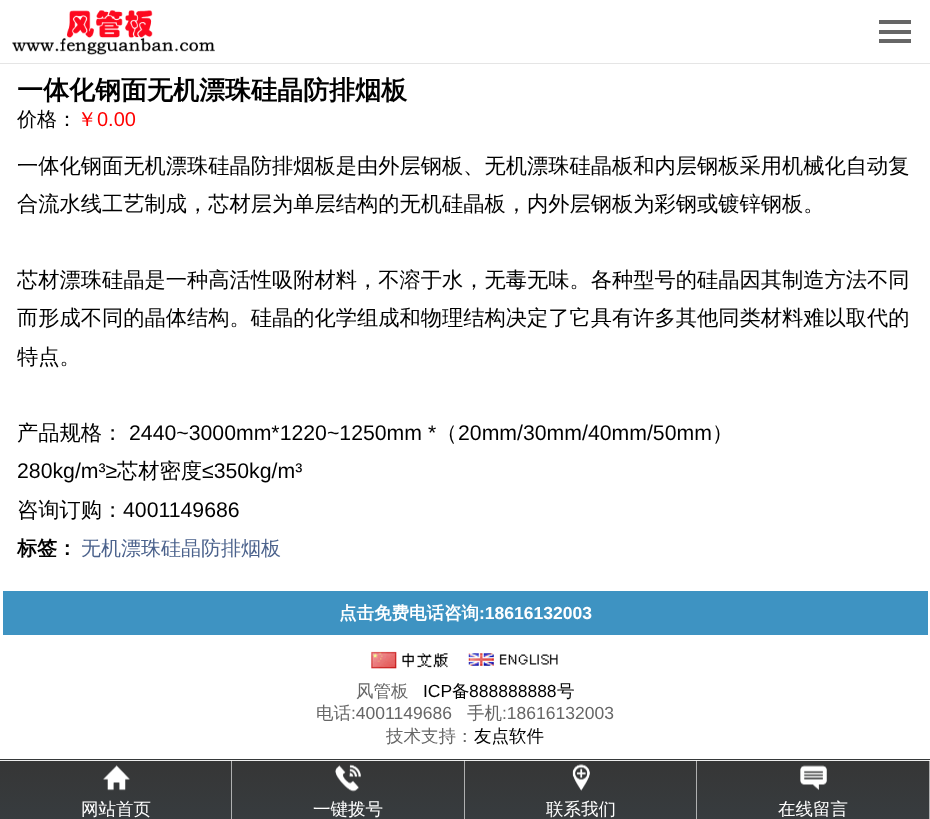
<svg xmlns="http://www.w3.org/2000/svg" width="930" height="819">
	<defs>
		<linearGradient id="g1" gradientUnits="userSpaceOnUse" x1="465" y1="760" x2="465" y2="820"><stop offset="0" stop-color="#363636" /><stop offset="1" stop-color="#373C3F" /></linearGradient>
		<linearGradient id="g2" gradientUnits="userSpaceOnUse" x1="465" y1="760" x2="465" y2="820"><stop offset="0" stop-color="#AFAFAF" /><stop offset="1" stop-color="#AFB1B2" /></linearGradient>
	</defs>
	<rect width="100%" height="100%" fill="#FFFFFF" />
	<rect x="0" y="1" width="930" height="63" fill="#000000" fill-opacity="0.1" filter="blur(0.5px)" />
	<rect x="0" y="0" width="930" height="63" fill="#FFFFFF" />
	<image x="12" y="10" width="203" height="45" href="assets/img1.png" />
	<rect x="879" y="20" width="32" height="4" fill="#666666" />
	<rect x="879" y="39" width="32" height="4" fill="#666666" />
	<rect x="879" y="30" width="32" height="4" fill="#666666" />
	<text x="17" y="99" font-family="WenQuanYi Zen Hei" font-size="26" font-weight="700" fill="#000000">一体化钢面无机漂珠硅晶防排烟板</text>
	<text x="17" y="126" font-family="WenQuanYi Zen Hei" font-size="20" font-weight="500" fill="#000000">价格：</text>
	<text x="77" y="126" font-family="WenQuanYi Zen Hei" font-size="20" font-weight="500" fill="#FF0000">￥</text>
	<text x="97" y="126" font-family="Liberation Sans" font-size="20" fill="#FF0000">0.00</text>
	<g font-family="WenQuanYi Zen Hei" font-size="21.25" font-weight="500" fill="#000000">
		<text x="17" y="173">一体化钢面无机漂珠硅晶防排烟板是由外层钢板、无机漂珠硅晶板和内层钢板采用机械化自动复</text>
		<text x="17" y="211">合流水线工艺制成，芯材层为单层结构的无机硅晶板，内外层钢板为彩钢或镀锌钢板。</text>
		<text x="17" y="287">芯材漂珠硅晶是一种高活性吸附材料，不溶于水，无毒无味。各种型号的硅晶因其制造方法不同</text>
		<text x="17" y="325">而形成不同的晶体结构。硅晶的化学组成和物理结构决定了它具有许多其他同类材料难以取代的</text>
		<text x="17" y="364">特点。</text>
		<text x="17" y="440">产品规格：</text>
	</g>
	<text x="129" y="440" font-family="Liberation Sans" font-size="21.25" fill="#000000">2440~3000mm*1220~1250mm *</text>
	<text x="436" y="440" font-family="WenQuanYi Zen Hei" font-size="21.25" font-weight="500" fill="#000000">（</text>
	<text x="458" y="440" font-family="Liberation Sans" font-size="21.25" fill="#000000">20mm/30mm/40mm/50mm</text>
	<text x="712" y="440" font-family="WenQuanYi Zen Hei" font-size="21.25" font-weight="500" fill="#000000">）</text>
	<text x="17" y="478" font-family="Liberation Sans" font-size="21.25" fill="#000000">280kg/m³≥</text>
	<text x="117" y="478" font-family="WenQuanYi Zen Hei" font-size="21.25" font-weight="500" fill="#000000">芯材密度</text>
	<text x="202" y="478" font-family="Liberation Sans" font-size="21.25" fill="#000000">≤350kg/m³</text>
	<text x="17" y="517" font-family="WenQuanYi Zen Hei" font-size="21.25" font-weight="500" fill="#000000">咨询订购：</text>
	<text x="123" y="517" font-family="Liberation Sans" font-size="21.25" fill="#000000">4001149686</text>
	<text x="17" y="555" font-family="WenQuanYi Zen Hei" font-size="20" font-weight="700" fill="#000000">标签：</text>
	<text x="81" y="555" font-family="WenQuanYi Zen Hei" font-size="20" font-weight="500" fill="#4B628C">无机漂珠硅晶防排烟板</text>
	<rect x="3" y="591" width="925" height="44" fill="#3E93C2" />
	<text x="339" y="619" font-family="WenQuanYi Zen Hei" font-size="17.5" font-weight="700" fill="#FFFFFF">点击免费电话咨询</text>
	<text x="479" y="619" font-family="Liberation Sans" font-size="17.5" font-weight="700" fill="#FFFFFF">:18616132003</text>
	<image x="371" y="651" width="77" height="18" href="assets/img2.png" />
	<image x="468" y="653" width="90" height="13" href="assets/img3.png" />
	<text x="356" y="697" font-family="WenQuanYi Zen Hei" font-size="17.5" font-weight="500" fill="#666666">风管板</text>
	<text x="423" y="697" font-family="Liberation Sans" font-size="17.5" fill="#000000">ICP</text>
	<text x="452" y="697" font-family="WenQuanYi Zen Hei" font-size="17.5" font-weight="500" fill="#000000">备</text>
	<text x="469" y="697" font-family="Liberation Sans" font-size="17.5" fill="#000000">888888888</text>
	<text x="557" y="697" font-family="WenQuanYi Zen Hei" font-size="17.5" font-weight="500" fill="#000000">号</text>
	<text x="316" y="719" font-family="WenQuanYi Zen Hei" font-size="17.5" font-weight="500" fill="#666666">电话</text>
	<text x="351" y="719" font-family="Liberation Sans" font-size="17.5" fill="#666666">:4001149686</text>
	<text x="467" y="719" font-family="WenQuanYi Zen Hei" font-size="17.5" font-weight="500" fill="#666666">手机</text>
	<text x="502" y="719" font-family="Liberation Sans" font-size="17.5" fill="#666666">:18616132003</text>
	<text x="386" y="742" font-family="WenQuanYi Zen Hei" font-size="17.5" font-weight="500" fill="#666666">技术支持：</text>
	<text x="474" y="742" font-family="WenQuanYi Zen Hei" font-size="17.5" font-weight="500" fill="#000000">友点软件</text>
	<rect x="0" y="761" width="929" height="58" fill="url(#g1)" />
	<rect x="929" y="760" width="1" height="59" fill="url(#g2)" />
	<rect x="696" y="760" width="1" height="59" fill="url(#g2)" />
	<rect x="464" y="760" width="1" height="59" fill="url(#g2)" />
	<rect x="231" y="760" width="1" height="59" fill="url(#g2)" />
	<rect x="0" y="760" width="930" height="1" fill="#EEEEEE" />
	<rect x="929" y="760" width="1" height="1" fill="#F8F8F8" />
	<rect x="696" y="760" width="1" height="1" fill="#F8F8F8" />
	<rect x="464" y="760" width="1" height="1" fill="#F8F8F8" />
	<rect x="231" y="760" width="1" height="1" fill="#F8F8F8" />
	<rect x="0" y="759" width="930" height="1" fill="#36393A" />
	<image x="103" y="765" width="27" height="26" href="assets/img4.png" />
	<text x="81" y="815" font-family="WenQuanYi Zen Hei" font-size="17.5" font-weight="500" fill="#FFFFFF">网站首页</text>
	<image x="335" y="764" width="26" height="28" href="assets/img5.png" />
	<text x="313" y="815" font-family="WenQuanYi Zen Hei" font-size="17.5" font-weight="500" fill="#FFFFFF">一键拨号</text>
	<image x="572" y="764" width="18" height="27" href="assets/img6.png" />
	<text x="546" y="815" font-family="WenQuanYi Zen Hei" font-size="17.5" font-weight="500" fill="#FFFFFF">联系我们</text>
	<image x="800" y="765" width="27" height="26" href="assets/img7.png" />
	<text x="778" y="815" font-family="WenQuanYi Zen Hei" font-size="17.5" font-weight="500" fill="#FFFFFF">在线留言</text>
</svg>
